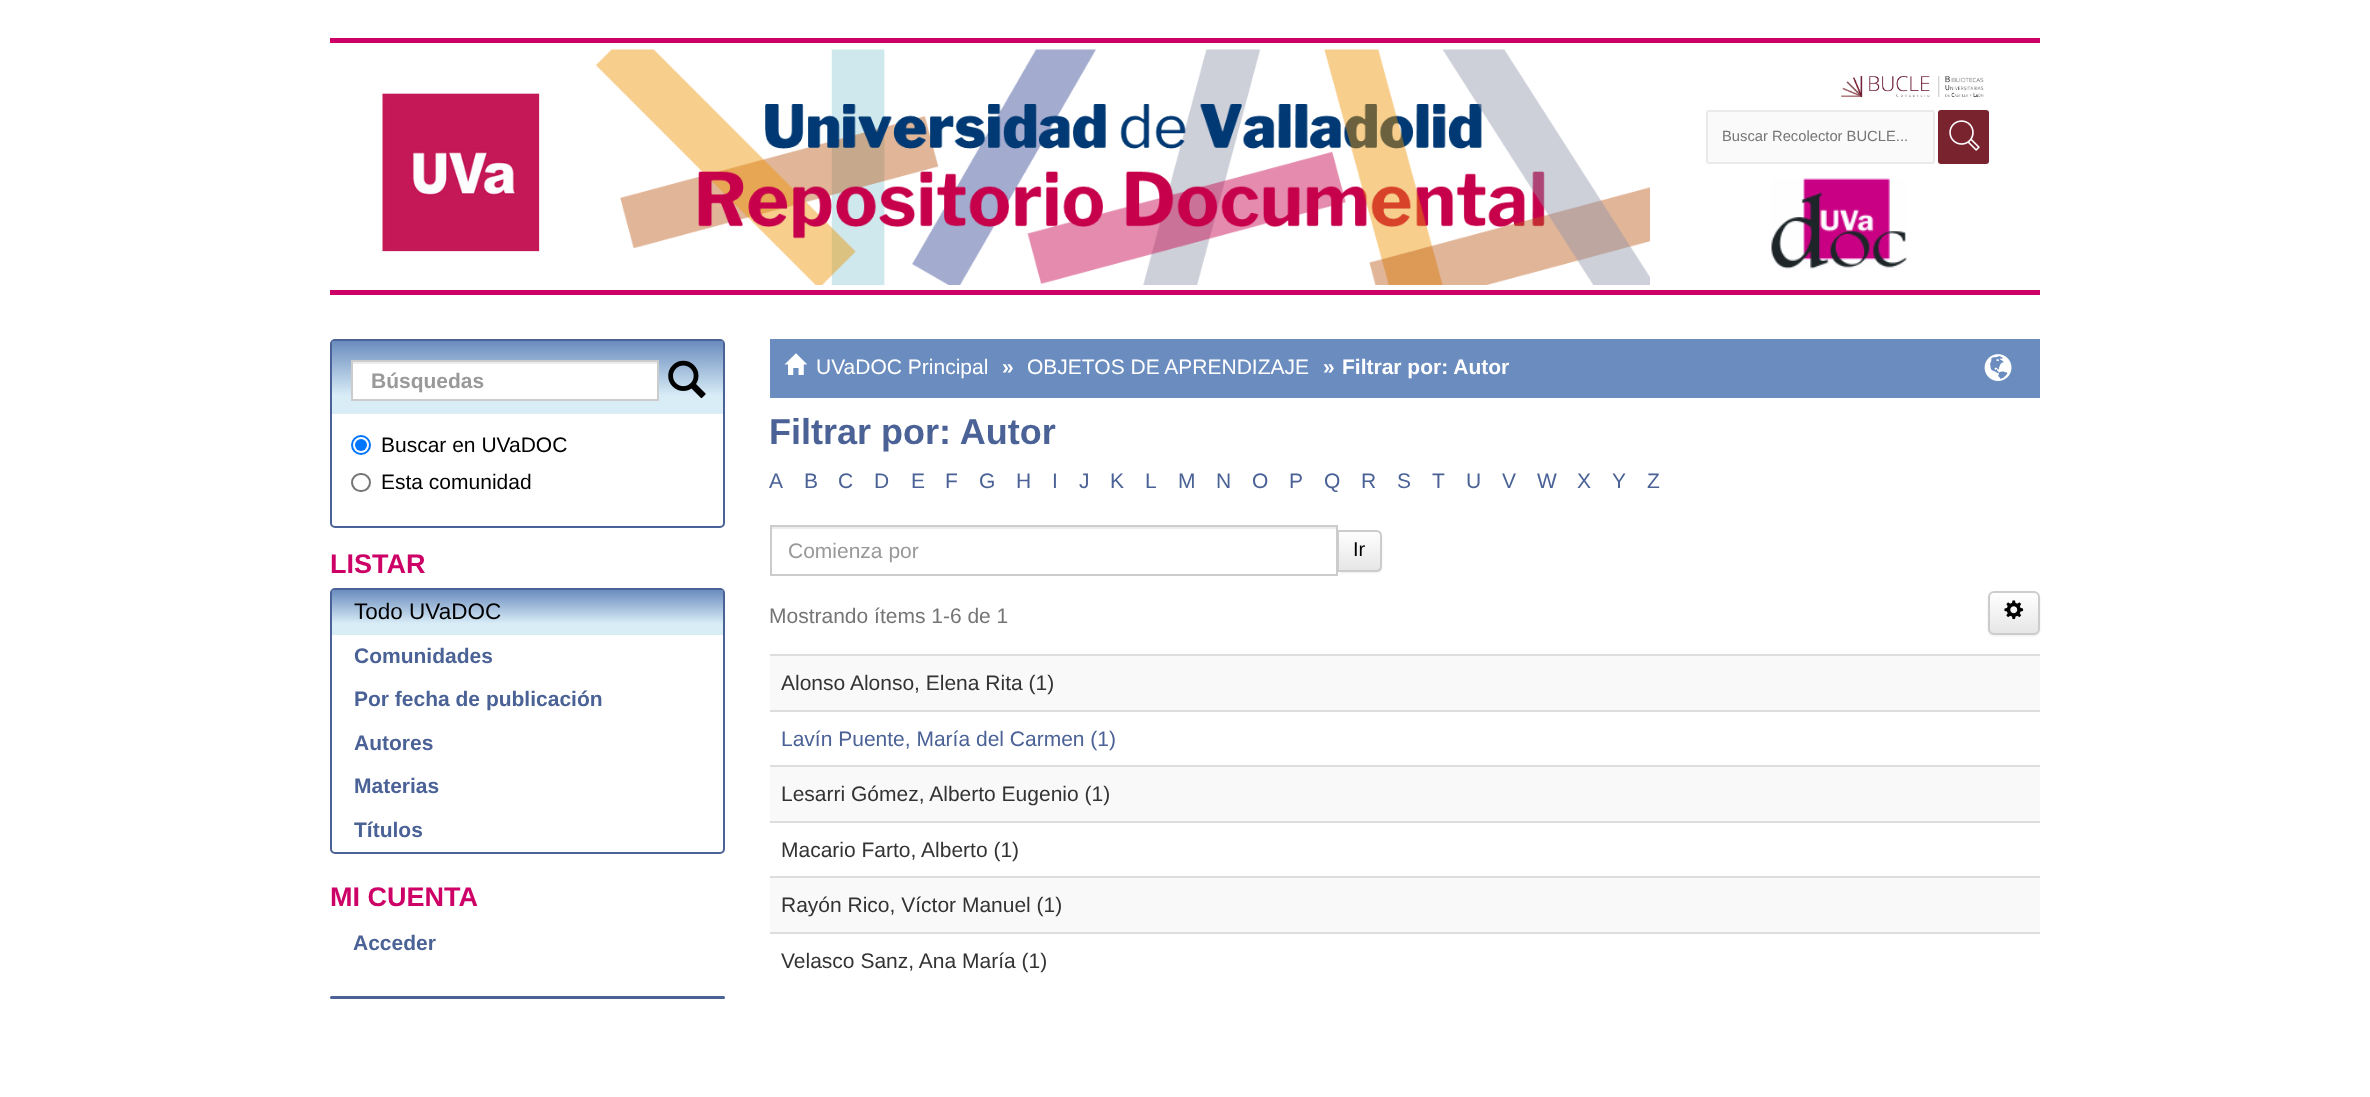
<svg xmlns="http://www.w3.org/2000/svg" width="2370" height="1097">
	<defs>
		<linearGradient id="g1" gradientUnits="userSpaceOnUse" x1="527" y1="341" x2="527" y2="414"><stop offset="0" stop-color="#6A8CBE" /><stop offset="0.75" stop-color="#D9EDF7" /></linearGradient>
		<linearGradient id="g2" gradientUnits="userSpaceOnUse" x1="527" y1="590" x2="527" y2="635"><stop offset="0" stop-color="#6A8CBE" /><stop offset="0.75" stop-color="#D9EDF7" /></linearGradient>
		<clipPath id="clip1"><path d="M1337 530H1376C1379.5 530 1382 532.5 1382 536V566C1382 569.5 1379.5 572 1376 572H1337Z" /></clipPath>
		<linearGradient id="g3" gradientUnits="userSpaceOnUse" x1="1359" y1="531" x2="1359" y2="570"><stop offset="0" stop-color="#FFFFFF" /><stop offset="1" stop-color="#E6E6E6" /></linearGradient>
		<clipPath id="clip2"><rect x="1988" y="591" width="52" height="44" rx="6" /></clipPath>
		<linearGradient id="g4" gradientUnits="userSpaceOnUse" x1="2014" y1="593" x2="2014" y2="633"><stop offset="0" stop-color="#FFFFFF" /><stop offset="1" stop-color="#E6E6E6" /></linearGradient>
	</defs>
	<rect width="100%" height="100%" fill="#FFFFFF" />
	<rect x="330" y="38" width="1710" height="5" fill="#CC0066" />
	<rect x="330" y="290" width="1710" height="5" fill="#CC0066" />
	<image x="380" y="92" width="164" height="164" href="assets/img1.png" />
	<image x="595" y="49" width="1055" height="236" href="assets/img2.png" />
	<image x="1841" y="76" width="143" height="22" href="assets/img3.png" />
	<rect x="1707" y="111" width="227" height="52" rx="2" fill="#FAFAFA" stroke="#EAEAEA" stroke-width="2" />
	<text x="1722" y="141" font-family="Liberation Sans" font-size="14.75" fill="#757575">Buscar Recolector BUCLE...</text>
	<rect x="1938" y="110" width="51" height="54" rx="3" fill="#79232E" />
	<image x="1949" y="120" width="31" height="31" href="assets/img4.png" />
	<image x="1771" y="178" width="136" height="91" href="assets/img5.png" />
	<rect x="331" y="340" width="393" height="187" rx="4" fill="none" stroke="#4B6296" stroke-width="2" />
	<rect x="332" y="341" width="391" height="73" fill="url(#g1)" />
	<rect x="353" y="364" width="304" height="35" fill="#FFFFFF" />
	<rect x="353" y="362" width="304" height="2" fill="#ECECEC" />
	<rect x="352" y="361" width="306" height="39" fill="none" stroke="#CCCCCC" stroke-width="2" />
	<text x="371" y="388" font-family="Liberation Sans" font-size="21" font-weight="700" fill="#999999">Búsquedas</text>
	<image x="668" y="360" width="38" height="39" href="assets/img6.png" />
	<circle cx="361" cy="445" r="9" fill="none" stroke="#0075FF" stroke-width="2" />
	<circle cx="361" cy="445" r="6" fill="#0075FF" />
	<text x="381" y="452" font-family="Liberation Sans" font-size="21" fill="#000000">Buscar en UVaDOC</text>
	<rect x="352" y="474" width="18" height="17" rx="8.5" fill="none" stroke="#767676" stroke-width="2" />
	<text x="381" y="489" font-family="Liberation Sans" font-size="21" fill="#000000">Esta comunidad</text>
	<text x="330" y="573" font-family="Liberation Sans" font-size="27" font-weight="700" fill="#CC0066">LISTAR</text>
	<rect x="331" y="589" width="393" height="264" rx="4" fill="none" stroke="#4B6296" stroke-width="2" />
	<rect x="332" y="590" width="391" height="45" fill="url(#g2)" />
	<text x="354" y="619" font-family="Liberation Sans" font-size="22.5" fill="#000000">Todo UVaDOC</text>
	<g font-family="Liberation Sans" font-size="21" font-weight="700" fill="#4B6296">
		<text x="354" y="663">Comunidades</text>
		<text x="354" y="706">Por fecha de publicación</text>
		<text x="354" y="750">Autores</text>
		<text x="354" y="793">Materias</text>
		<text x="354" y="837">Títulos</text>
	</g>
	<text x="330" y="906" font-family="Liberation Sans" font-size="27" font-weight="700" fill="#CC0066">MI CUENTA</text>
	<text x="353" y="950" font-family="Liberation Sans" font-size="21" font-weight="700" fill="#4B6296">Acceder</text>
	<rect x="330" y="996" width="395" height="3" rx="1.5" fill="#4B6296" />
	<rect x="770" y="339" width="1270" height="59" fill="#6A8CBE" />
	<image x="784" y="353" width="24" height="22" href="assets/img7.png" />
	<text x="816" y="374" font-family="Liberation Sans" font-size="21" fill="#FFFFFF">UVaDOC Principal</text>
	<text x="1002" y="374" font-family="Liberation Sans" font-size="21" font-weight="700" fill="#FFFFFF">»</text>
	<text x="1027" y="374" font-family="Liberation Sans" font-size="21" fill="#FFFFFF">OBJETOS DE APRENDIZAJE</text>
	<g font-family="Liberation Sans" font-size="21" font-weight="700" fill="#FFFFFF">
		<text x="1323" y="374">»</text>
		<text x="1342" y="374">Filtrar por: Autor</text>
	</g>
	<image x="1984" y="354" width="28" height="27" href="assets/img8.png" />
	<text x="769" y="444" font-family="Liberation Sans" font-size="36" font-weight="700" fill="#4B6296">Filtrar por: Autor</text>
	<g font-family="Liberation Sans" font-size="21" fill="#4B6296">
		<text x="769" y="488">A</text>
		<text x="804" y="488">B</text>
		<text x="838" y="488">C</text>
		<text x="874" y="488">D</text>
		<text x="911" y="488">E</text>
		<text x="945" y="488">F</text>
		<text x="979" y="488">G</text>
		<text x="1016" y="488">H</text>
		<text x="1052" y="488">I</text>
		<text x="1079" y="488">J</text>
		<text x="1110" y="488">K</text>
		<text x="1145" y="488">L</text>
		<text x="1178" y="488">M</text>
		<text x="1216" y="488">N</text>
		<text x="1252" y="488">O</text>
		<text x="1289" y="488">P</text>
		<text x="1324" y="488">Q</text>
		<text x="1361" y="488">R</text>
		<text x="1397" y="488">S</text>
		<text x="1432" y="488">T</text>
		<text x="1466" y="488">U</text>
		<text x="1502" y="488">V</text>
		<text x="1537" y="488">W</text>
		<text x="1577" y="488">X</text>
		<text x="1612" y="488">Y</text>
		<text x="1647" y="488">Z</text>
	</g>
	<rect x="1337" y="531" width="45" height="42" rx="6" fill="#000000" fill-opacity="0.07" filter="blur(1px)" />
	<rect x="771" y="527" width="566" height="2" fill="#ECECEC" />
	<g clip-path="url(#clip1)">
		<rect x="1339" y="531" width="43" height="39" fill="url(#g3)" />
	</g>
	<path d="M1338 531H1376C1379 531 1381 533 1381 536V566C1381 569 1379 571 1376 571H1338Z" fill="none" stroke="#CCCCCC" stroke-width="2" />
	<rect x="771" y="526" width="566" height="49" fill="none" stroke="#CCCCCC" stroke-width="2" />
	<text x="788" y="558" font-family="Liberation Sans" font-size="21" fill="#999999">Comienza por</text>
	<text x="1353" y="556" font-family="Liberation Sans" font-size="20" fill="#000000">Ir</text>
	<text x="769" y="623" font-family="Liberation Sans" font-size="21" fill="#757575">Mostrando ítems 1-6 de 1</text>
	<rect x="1988" y="593" width="52" height="43" rx="6" fill="#000000" fill-opacity="0.07" filter="blur(1px)" />
	<g clip-path="url(#clip2)">
		<rect x="1988" y="593" width="52" height="40" fill="url(#g4)" />
	</g>
	<path d="M1994 594H2027C2041 594 2038 595 2038 609V631C2039 630 2039 629 2039 628V598C2039 595 2037 593 2034 593H1994C1991 593 1989 595 1989 598C1989 596 1991 594 1994 594Z" fill="#FFFFFF" fill-opacity="0.15" />
	<rect x="1989" y="592" width="50" height="42" rx="5" fill="none" stroke="#CCCCCC" stroke-width="2" />
	<image x="2004" y="600" width="20" height="20" href="assets/img9.png" />
	<rect x="770" y="656" width="1270" height="54" fill="#F9F9F9" />
	<rect x="770" y="654" width="1270" height="2" fill="#DDDDDD" />
	<text x="781" y="690" font-family="Liberation Sans" font-size="21" fill="#333333">Alonso Alonso, Elena Rita (1)</text>
	<rect x="770" y="710" width="1270" height="2" fill="#DDDDDD" />
	<text x="781" y="746" font-family="Liberation Sans" font-size="21" fill="#4B6296">Lavín Puente, María del Carmen (1)</text>
	<rect x="770" y="767" width="1270" height="54" fill="#F9F9F9" />
	<rect x="770" y="765" width="1270" height="2" fill="#DDDDDD" />
	<text x="781" y="801" font-family="Liberation Sans" font-size="21" fill="#333333">Lesarri Gómez, Alberto Eugenio (1)</text>
	<rect x="770" y="821" width="1270" height="2" fill="#DDDDDD" />
	<text x="781" y="857" font-family="Liberation Sans" font-size="21" fill="#333333">Macario Farto, Alberto (1)</text>
	<rect x="770" y="878" width="1270" height="54" fill="#F9F9F9" />
	<rect x="770" y="876" width="1270" height="2" fill="#DDDDDD" />
	<text x="781" y="912" font-family="Liberation Sans" font-size="21" fill="#333333">Rayón Rico, Víctor Manuel (1)</text>
	<rect x="770" y="932" width="1270" height="2" fill="#DDDDDD" />
	<text x="781" y="968" font-family="Liberation Sans" font-size="21" fill="#333333">Velasco Sanz, Ana María (1)</text>
</svg>
